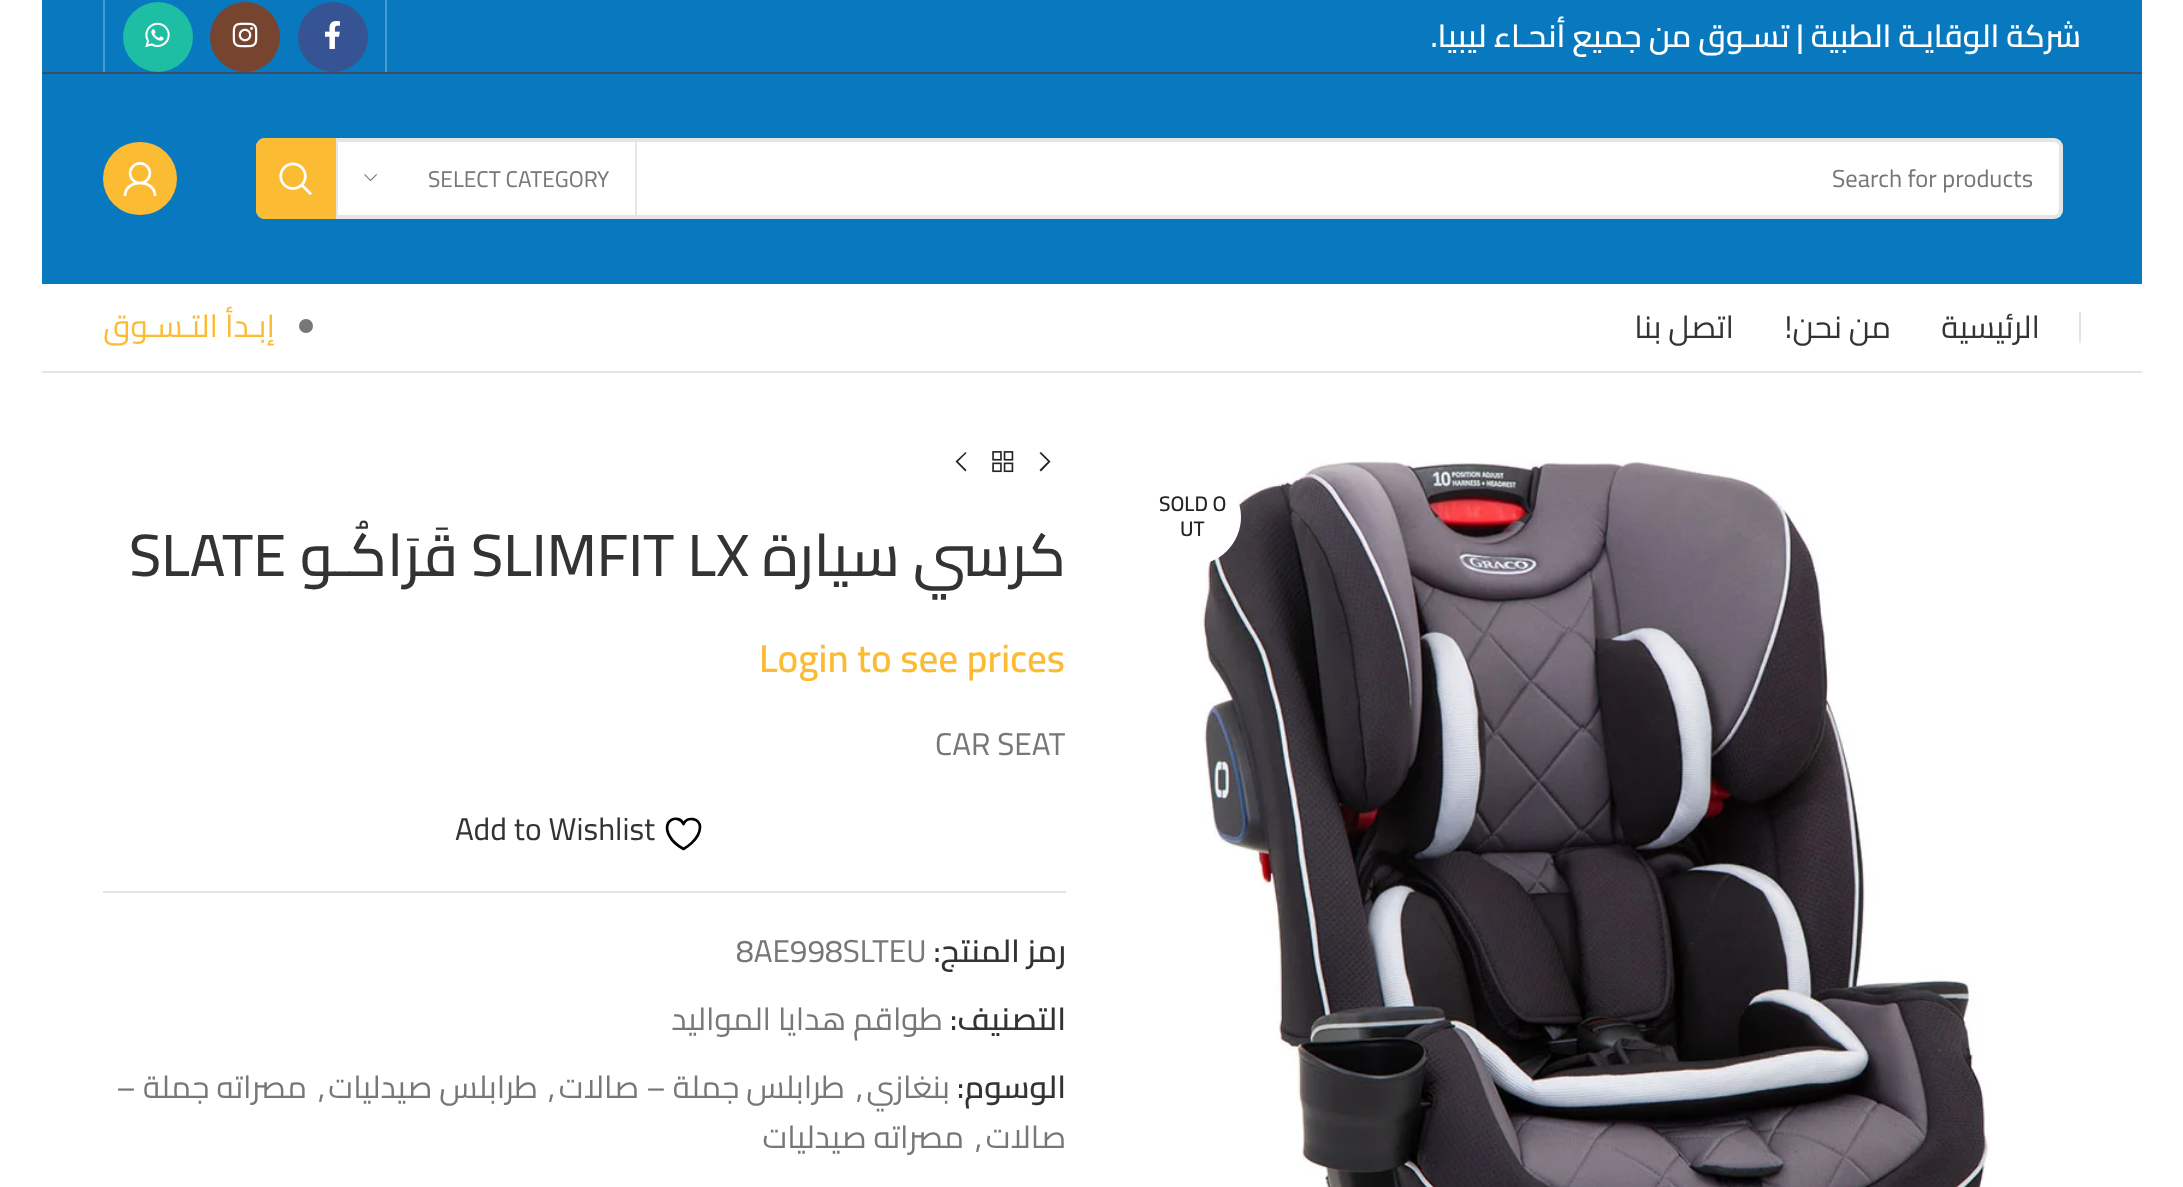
<svg xmlns="http://www.w3.org/2000/svg" width="2183" height="1187">
	<rect width="100%" height="100%" fill="#FFFFFF" />
	<rect x="42" y="0" width="2100" height="72" fill="#0979BF" />
	<rect x="42" y="72" width="2100" height="2" fill="#3A4D69" />
	<text x="2081" y="47" font-family="Cairo" font-size="31.5" font-weight="600" direction="rtl" fill="#FFFFFF">شركة الوقايـة الطبية | تسـوق من جميع أنحـاء ليبيا.</text>
	<rect x="385" y="0" width="2" height="72" fill="#479BCF" />
	<circle cx="333" cy="37" r="35" fill="#365493" />
	<image x="325" y="21" width="15" height="28" href="assets/img1.png" />
	<circle cx="245" cy="37" r="35" fill="#774430" />
	<image x="232" y="22" width="26" height="26" href="assets/img2.png" />
	<circle cx="158" cy="37" r="35" fill="#1EBEA5" />
	<image x="145" y="22" width="25" height="26" href="assets/img3.png" />
	<rect x="103" y="0" width="2" height="72" fill="#479BCF" />
	<rect x="42" y="74" width="2100" height="210" fill="#0979BF" />
	<rect x="256" y="138" width="1807" height="81" rx="9" fill="#FFFFFF" />
	<rect x="258" y="140" width="1803" height="77" rx="7" fill="none" stroke="#000000" stroke-opacity="0.1" stroke-width="4" />
	<text x="1832" y="187" font-family="Cairo" font-size="24.5" fill="#777777">Search for products</text>
	<rect x="635" y="142" width="2" height="73" fill="#E6E6E6" />
	<rect x="336" y="142" width="2" height="73" fill="#E6E6E6" />
	<text x="428" y="187" font-family="Cairo" font-size="22.75" fill="#777777">SELECT CATEGORY</text>
	<image x="364" y="174" width="13" height="8" href="assets/img4.png" />
	<path d="M265 138H336V219H265C260 219 256 215 256 210V147C256 142 260 138 265 138Z" fill="#FBBC34" />
	<image x="279" y="162" width="33" height="34" href="assets/img5.png" />
	<rect x="103" y="142" width="74" height="73" rx="36.5" fill="#FBBC34" />
	<image x="123" y="162" width="34" height="34" href="assets/img6.png" />
	<rect x="42" y="371" width="2100" height="2" fill="#E6E6E6" />
	<rect x="2079" y="312" width="2" height="31" fill="#E4E4E4" />
	<g font-family="Cairo" font-size="31.5" direction="rtl" fill="#333333">
		<text x="2040" y="338">الرئيسية</text>
		<text x="1891" y="338">من نحن!</text>
		<text x="1734" y="338">اتصل بنا</text>
	</g>
	<circle cx="306" cy="326" r="7" fill="#777777" />
	<text x="275" y="337" font-family="Cairo" font-size="31.5" direction="rtl" fill="#FBBC34">إبـدأ التـسـوق</text>
	<image x="1200" y="461" width="790" height="726" href="assets/img7.png" />
	<circle cx="1193" cy="517" r="48" fill="#FFFFFF" />
	<g font-family="Cairo" font-size="21" font-weight="600" fill="#242424">
		<text x="1159" y="511">SOLD O</text>
		<text x="1180" y="536">UT</text>
	</g>
	<path d="M1039.5 453L1048 461.5L1039.5 470L1041 471.5L1050.5 461.5L1041 452Z" fill="#242424" />
	<image x="992" y="451" width="22" height="22" href="assets/img8.png" />
	<path d="M966.5 453L965.5 452L955.5 461.5L965.5 471.5L966.5 470L958 461.5Z" fill="#242424" />
	<text x="1066" y="576" font-family="Cairo" font-size="59.5" font-weight="500" direction="rtl" fill="#333333">كرسي سيارة</text>
	<text x="471" y="576" font-family="Cairo" font-size="59.5" font-weight="500" fill="#333333">SLIMFIT LX</text>
	<text x="458" y="576" font-family="Cairo" font-size="59.5" font-weight="500" direction="rtl" fill="#333333">قَرَاكُـو</text>
	<text x="129" y="576" font-family="Cairo" font-size="59.5" font-weight="500" fill="#333333">SLATE</text>
	<text x="759" y="672" font-family="Cairo" font-size="39" font-weight="600" fill="#FBBC34">Login to see prices</text>
	<text x="935" y="755" font-family="Cairo" font-size="31.5" fill="#777777">CAR SEAT</text>
	<path d="M700 827C700 818 687 816 683.5 824C679 813.5 660.5 819.5 669.5 836C672.5 841.5 678 846 683.5 849C683.5 849 700 840 700 827Z" fill="none" stroke="#000000" stroke-width="2.7" stroke-linecap="round" stroke-linejoin="round" />
	<text x="455" y="840" font-family="Cairo" font-size="31.5" fill="#333333">Add to Wishlist</text>
	<rect x="103" y="891" width="963" height="2" fill="#E4E4E4" />
	<text x="1066" y="962" font-family="Cairo" font-size="31.5" font-weight="600" direction="rtl" fill="#333333">رمز المنتج:</text>
	<text x="736" y="962" font-family="Cairo" font-size="31.5" fill="#777777">8AE998SLTEU</text>
	<text x="1066" y="1030" font-family="Cairo" font-size="31.5" font-weight="600" direction="rtl" fill="#333333">التصنيف:</text>
	<text x="943" y="1030" font-family="Cairo" font-size="31.5" direction="rtl" fill="#777777">طواقم هدايا المواليد</text>
	<text x="1066" y="1098" font-family="Cairo" font-size="31.5" font-weight="600" direction="rtl" fill="#333333">الوسوم:</text>
	<text x="950" y="1098" font-family="Cairo" font-size="31.5" direction="rtl" fill="#777777">بنغازي</text>
	<text x="856" y="1098" font-family="Cairo" font-size="31.5" fill="#777777">,</text>
	<text x="845" y="1098" font-family="Cairo" font-size="31.5" direction="rtl" fill="#777777">طرابلس جملة – صالات</text>
	<text x="548" y="1098" font-family="Cairo" font-size="31.5" fill="#777777">,</text>
	<text x="538" y="1098" font-family="Cairo" font-size="31.5" direction="rtl" fill="#777777">طرابلس صيدليات</text>
	<text x="318" y="1098" font-family="Cairo" font-size="31.5" fill="#777777">,</text>
	<g font-family="Cairo" font-size="31.5" direction="rtl" fill="#777777">
		<text x="307" y="1098">مصراته جملة –</text>
		<text x="1066" y="1148">صالات</text>
	</g>
	<text x="975" y="1148" font-family="Cairo" font-size="31.5" fill="#777777">,</text>
	<text x="964" y="1148" font-family="Cairo" font-size="31.5" direction="rtl" fill="#777777">مصراته صيدليات</text>
</svg>
